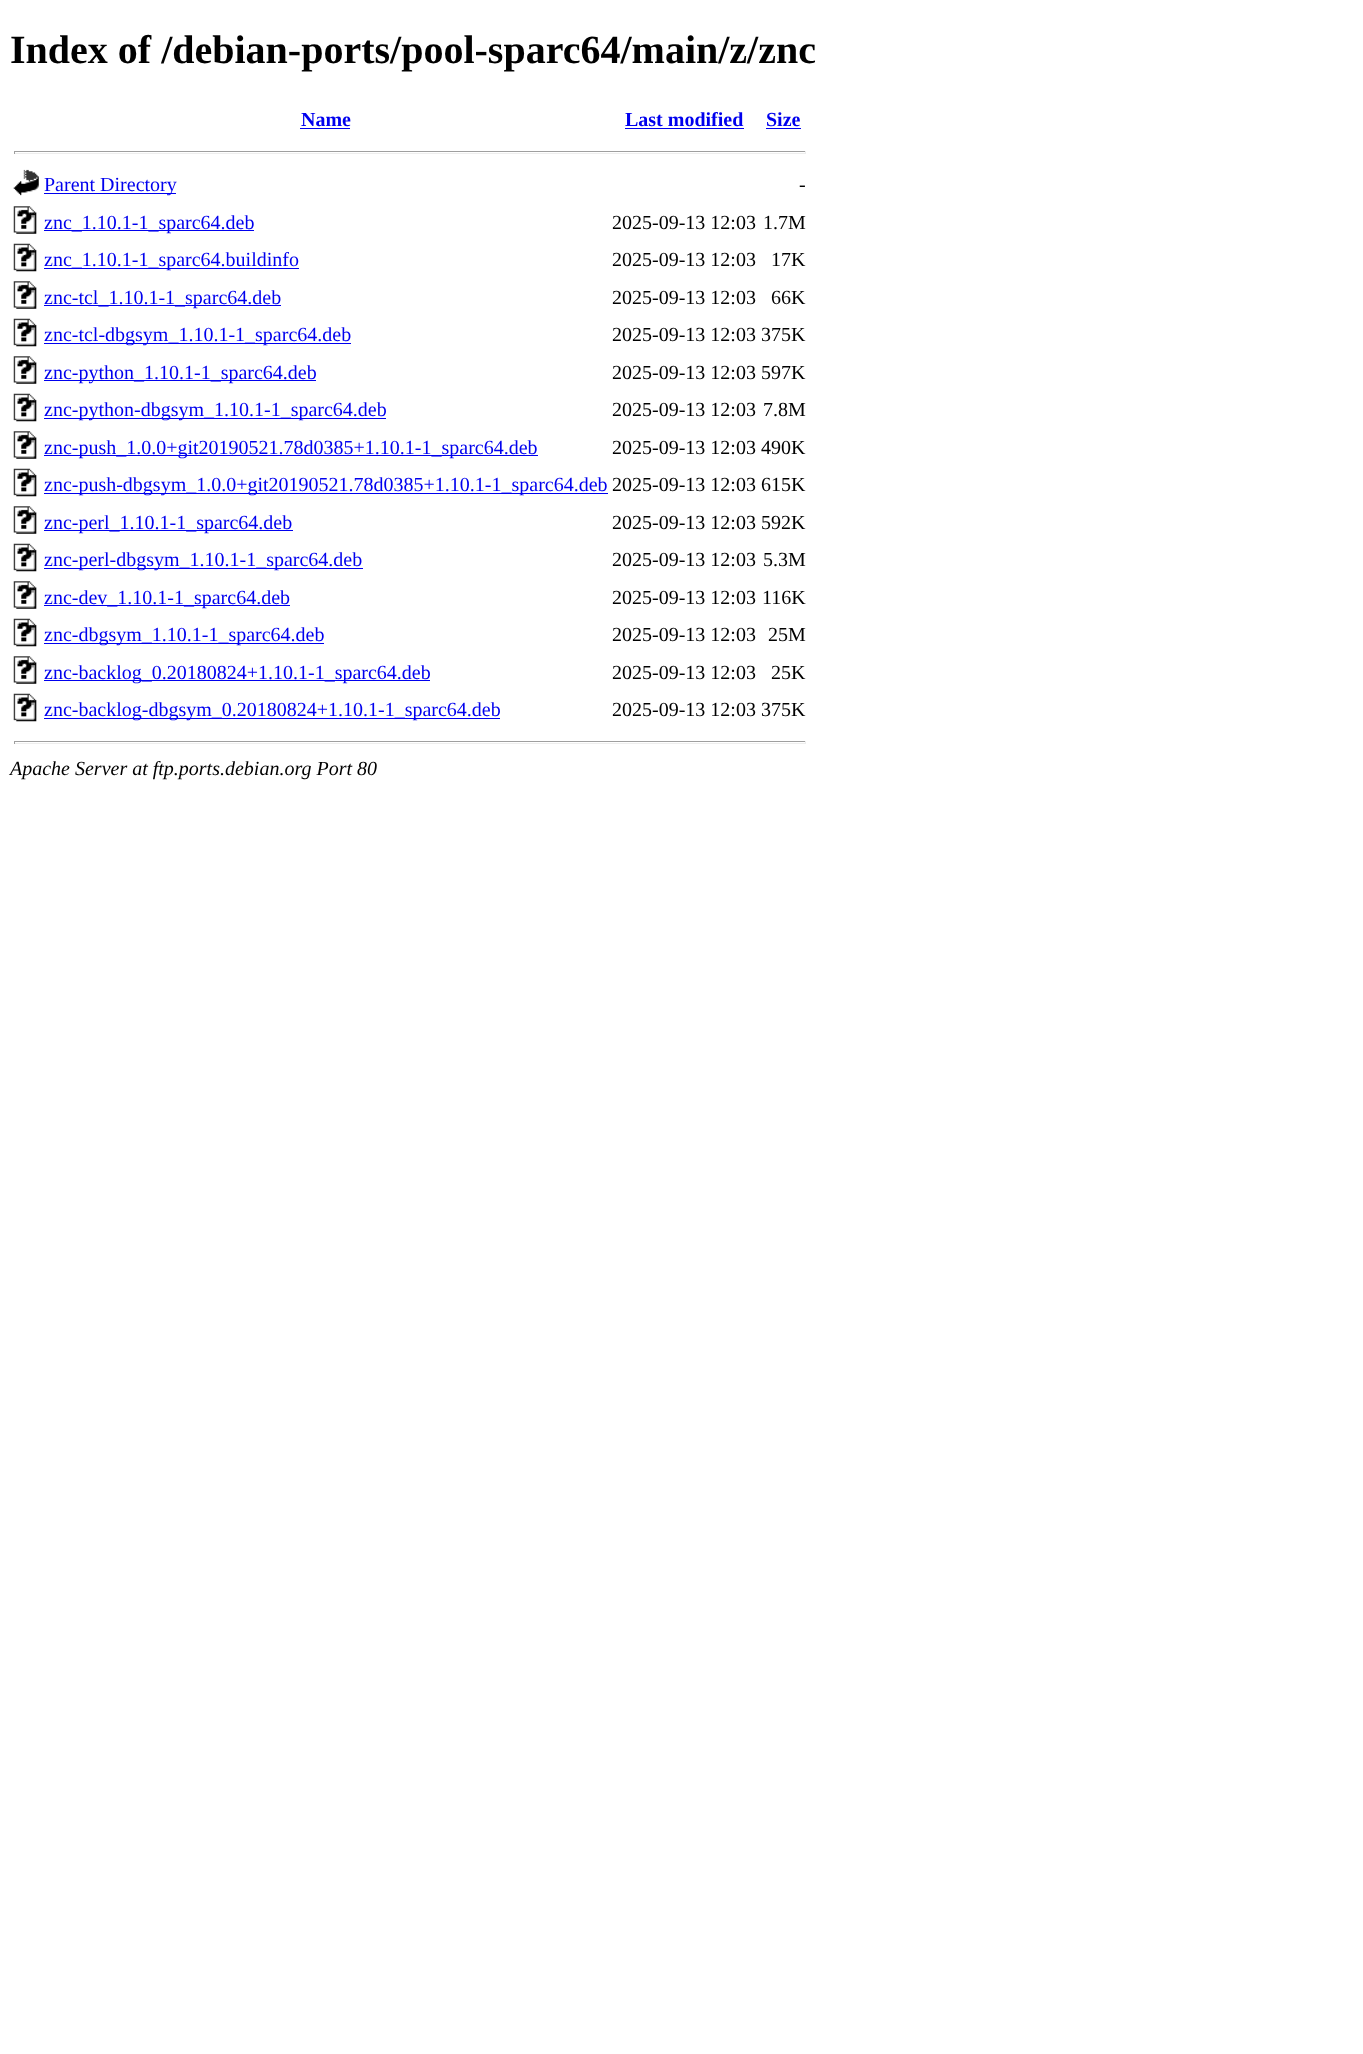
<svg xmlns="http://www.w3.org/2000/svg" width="1363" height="2054">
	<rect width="100%" height="100%" fill="#FFFFFF" />
	<text x="10" y="63" font-family="Liberation Serif" font-size="40" font-weight="700" fill="#000000">Index of /debian-ports/pool-sparc64/main/z/znc</text>
	<text x="301" y="126" font-family="Liberation Serif" font-size="20" font-weight="700" fill="#0000EE">Name</text>
	<rect x="300" y="128" width="50" height="1" fill="#0000EE" />
	<text x="625" y="126" font-family="Liberation Serif" font-size="20" font-weight="700" fill="#0000EE">Last modified</text>
	<rect x="625" y="128" width="119" height="1" fill="#0000EE" />
	<text x="766" y="126" font-family="Liberation Serif" font-size="20" font-weight="700" fill="#0000EE">Size</text>
	<rect x="766" y="128" width="35" height="1" fill="#0000EE" />
	<rect x="14" y="151" width="792" height="1" fill="#9F9F9F" />
	<rect x="805" y="151" width="1" height="3" fill="#EEEEEE" />
	<rect x="14" y="153" width="792" height="1" fill="#EEEEEE" />
	<rect x="14" y="151" width="1" height="3" fill="#9F9F9F" />
	<image x="13" y="169" width="26" height="27" href="assets/img1.png" />
	<rect x="44" y="193" width="132" height="1" fill="#0000EE" />
	<text x="44" y="191" font-family="Liberation Serif" font-size="20" fill="#0000EE">Parent Directory</text>
	<text x="799" y="191" font-family="Liberation Serif" font-size="20" fill="#000000">-</text>
	<image x="13" y="206" width="24" height="28" href="assets/img2.png" />
	<rect x="44" y="230" width="210" height="1" fill="#0000EE" />
	<text x="44" y="229" font-family="Liberation Serif" font-size="20" fill="#0000EE">znc_1.10.1-1_sparc64.deb</text>
	<g font-family="Liberation Serif" font-size="20" fill="#000000">
		<text x="612" y="229">2025-09-13 12:03</text>
		<text x="763" y="229">1.7M</text>
	</g>
	<image x="13" y="243" width="24" height="29" href="assets/img3.png" />
	<rect x="44" y="268" width="255" height="1" fill="#0000EE" />
	<text x="44" y="266" font-family="Liberation Serif" font-size="20" fill="#0000EE">znc_1.10.1-1_sparc64.buildinfo</text>
	<g font-family="Liberation Serif" font-size="20" fill="#000000">
		<text x="612" y="266">2025-09-13 12:03</text>
		<text x="771" y="266">17K</text>
	</g>
	<image x="13" y="281" width="24" height="28" href="assets/img4.png" />
	<rect x="44" y="305" width="237" height="1" fill="#0000EE" />
	<text x="44" y="304" font-family="Liberation Serif" font-size="20" fill="#0000EE">znc-tcl_1.10.1-1_sparc64.deb</text>
	<g font-family="Liberation Serif" font-size="20" fill="#000000">
		<text x="612" y="304">2025-09-13 12:03</text>
		<text x="771" y="304">66K</text>
	</g>
	<image x="13" y="318" width="24" height="29" href="assets/img3.png" />
	<rect x="44" y="343" width="307" height="1" fill="#0000EE" />
	<text x="44" y="341" font-family="Liberation Serif" font-size="20" fill="#0000EE">znc-tcl-dbgsym_1.10.1-1_sparc64.deb</text>
	<text x="612" y="341" font-family="Liberation Serif" font-size="20" fill="#000000">2025-09-13 12:03 375K</text>
	<image x="13" y="356" width="24" height="28" href="assets/img2.png" />
	<rect x="44" y="380" width="272" height="1" fill="#0000EE" />
	<text x="44" y="379" font-family="Liberation Serif" font-size="20" fill="#0000EE">znc-python_1.10.1-1_sparc64.deb</text>
	<text x="612" y="379" font-family="Liberation Serif" font-size="20" fill="#000000">2025-09-13 12:03 597K</text>
	<image x="13" y="393" width="24" height="29" href="assets/img3.png" />
	<rect x="44" y="418" width="342" height="1" fill="#0000EE" />
	<text x="44" y="416" font-family="Liberation Serif" font-size="20" fill="#0000EE">znc-python-dbgsym_1.10.1-1_sparc64.deb</text>
	<g font-family="Liberation Serif" font-size="20" fill="#000000">
		<text x="612" y="416">2025-09-13 12:03</text>
		<text x="763" y="416">7.8M</text>
	</g>
	<image x="13" y="431" width="24" height="28" href="assets/img2.png" />
	<rect x="44" y="455" width="494" height="1" fill="#0000EE" />
	<text x="44" y="454" font-family="Liberation Serif" font-size="20" fill="#0000EE">znc-push_1.0.0+git20190521.78d0385+1.10.1-1_sparc64.deb</text>
	<text x="612" y="454" font-family="Liberation Serif" font-size="20" fill="#000000">2025-09-13 12:03 490K</text>
	<image x="13" y="468" width="24" height="29" href="assets/img3.png" />
	<rect x="44" y="493" width="564" height="1" fill="#0000EE" />
	<text x="44" y="491" font-family="Liberation Serif" font-size="20" fill="#0000EE">znc-push-dbgsym_1.0.0+git20190521.78d0385+1.10.1-1_sparc64.deb</text>
	<text x="612" y="491" font-family="Liberation Serif" font-size="20" fill="#000000">2025-09-13 12:03 615K</text>
	<image x="13" y="506" width="24" height="28" href="assets/img2.png" />
	<rect x="44" y="530" width="249" height="1" fill="#0000EE" />
	<text x="44" y="529" font-family="Liberation Serif" font-size="20" fill="#0000EE">znc-perl_1.10.1-1_sparc64.deb</text>
	<text x="612" y="529" font-family="Liberation Serif" font-size="20" fill="#000000">2025-09-13 12:03 592K</text>
	<image x="13" y="543" width="24" height="29" href="assets/img3.png" />
	<rect x="44" y="568" width="319" height="1" fill="#0000EE" />
	<text x="44" y="566" font-family="Liberation Serif" font-size="20" fill="#0000EE">znc-perl-dbgsym_1.10.1-1_sparc64.deb</text>
	<g font-family="Liberation Serif" font-size="20" fill="#000000">
		<text x="612" y="566">2025-09-13 12:03</text>
		<text x="763" y="566">5.3M</text>
	</g>
	<image x="13" y="581" width="24" height="28" href="assets/img5.png" />
	<rect x="44" y="605" width="246" height="1" fill="#0000EE" />
	<text x="44" y="604" font-family="Liberation Serif" font-size="20" fill="#0000EE">znc-dev_1.10.1-1_sparc64.deb</text>
	<g font-family="Liberation Serif" font-size="20" fill="#000000">
		<text x="612" y="604">2025-09-13 12:03</text>
		<text x="762" y="604">116K</text>
	</g>
	<image x="13" y="618" width="24" height="29" href="assets/img3.png" />
	<rect x="44" y="643" width="280" height="1" fill="#0000EE" />
	<text x="44" y="641" font-family="Liberation Serif" font-size="20" fill="#0000EE">znc-dbgsym_1.10.1-1_sparc64.deb</text>
	<g font-family="Liberation Serif" font-size="20" fill="#000000">
		<text x="612" y="641">2025-09-13 12:03</text>
		<text x="768" y="641">25M</text>
	</g>
	<image x="13" y="656" width="24" height="28" href="assets/img2.png" />
	<rect x="44" y="680" width="386" height="1" fill="#0000EE" />
	<text x="44" y="679" font-family="Liberation Serif" font-size="20" fill="#0000EE">znc-backlog_0.20180824+1.10.1-1_sparc64.deb</text>
	<g font-family="Liberation Serif" font-size="20" fill="#000000">
		<text x="612" y="679">2025-09-13 12:03</text>
		<text x="771" y="679">25K</text>
	</g>
	<image x="13" y="693" width="24" height="29" href="assets/img3.png" />
	<rect x="44" y="718" width="456" height="1" fill="#0000EE" />
	<text x="44" y="716" font-family="Liberation Serif" font-size="20" fill="#0000EE">znc-backlog-dbgsym_0.20180824+1.10.1-1_sparc64.deb</text>
	<text x="612" y="716" font-family="Liberation Serif" font-size="20" fill="#000000">2025-09-13 12:03 375K</text>
	<rect x="14" y="741" width="792" height="1" fill="#9F9F9F" />
	<rect x="805" y="741" width="1" height="3" fill="#EEEEEE" />
	<rect x="14" y="743" width="792" height="1" fill="#EEEEEE" />
	<rect x="14" y="741" width="1" height="3" fill="#9F9F9F" />
	<text x="10" y="775" font-family="Liberation Serif" font-size="20" font-style="italic" fill="#000000">Apache Server at ftp.ports.debian.org Port 80</text>
</svg>
